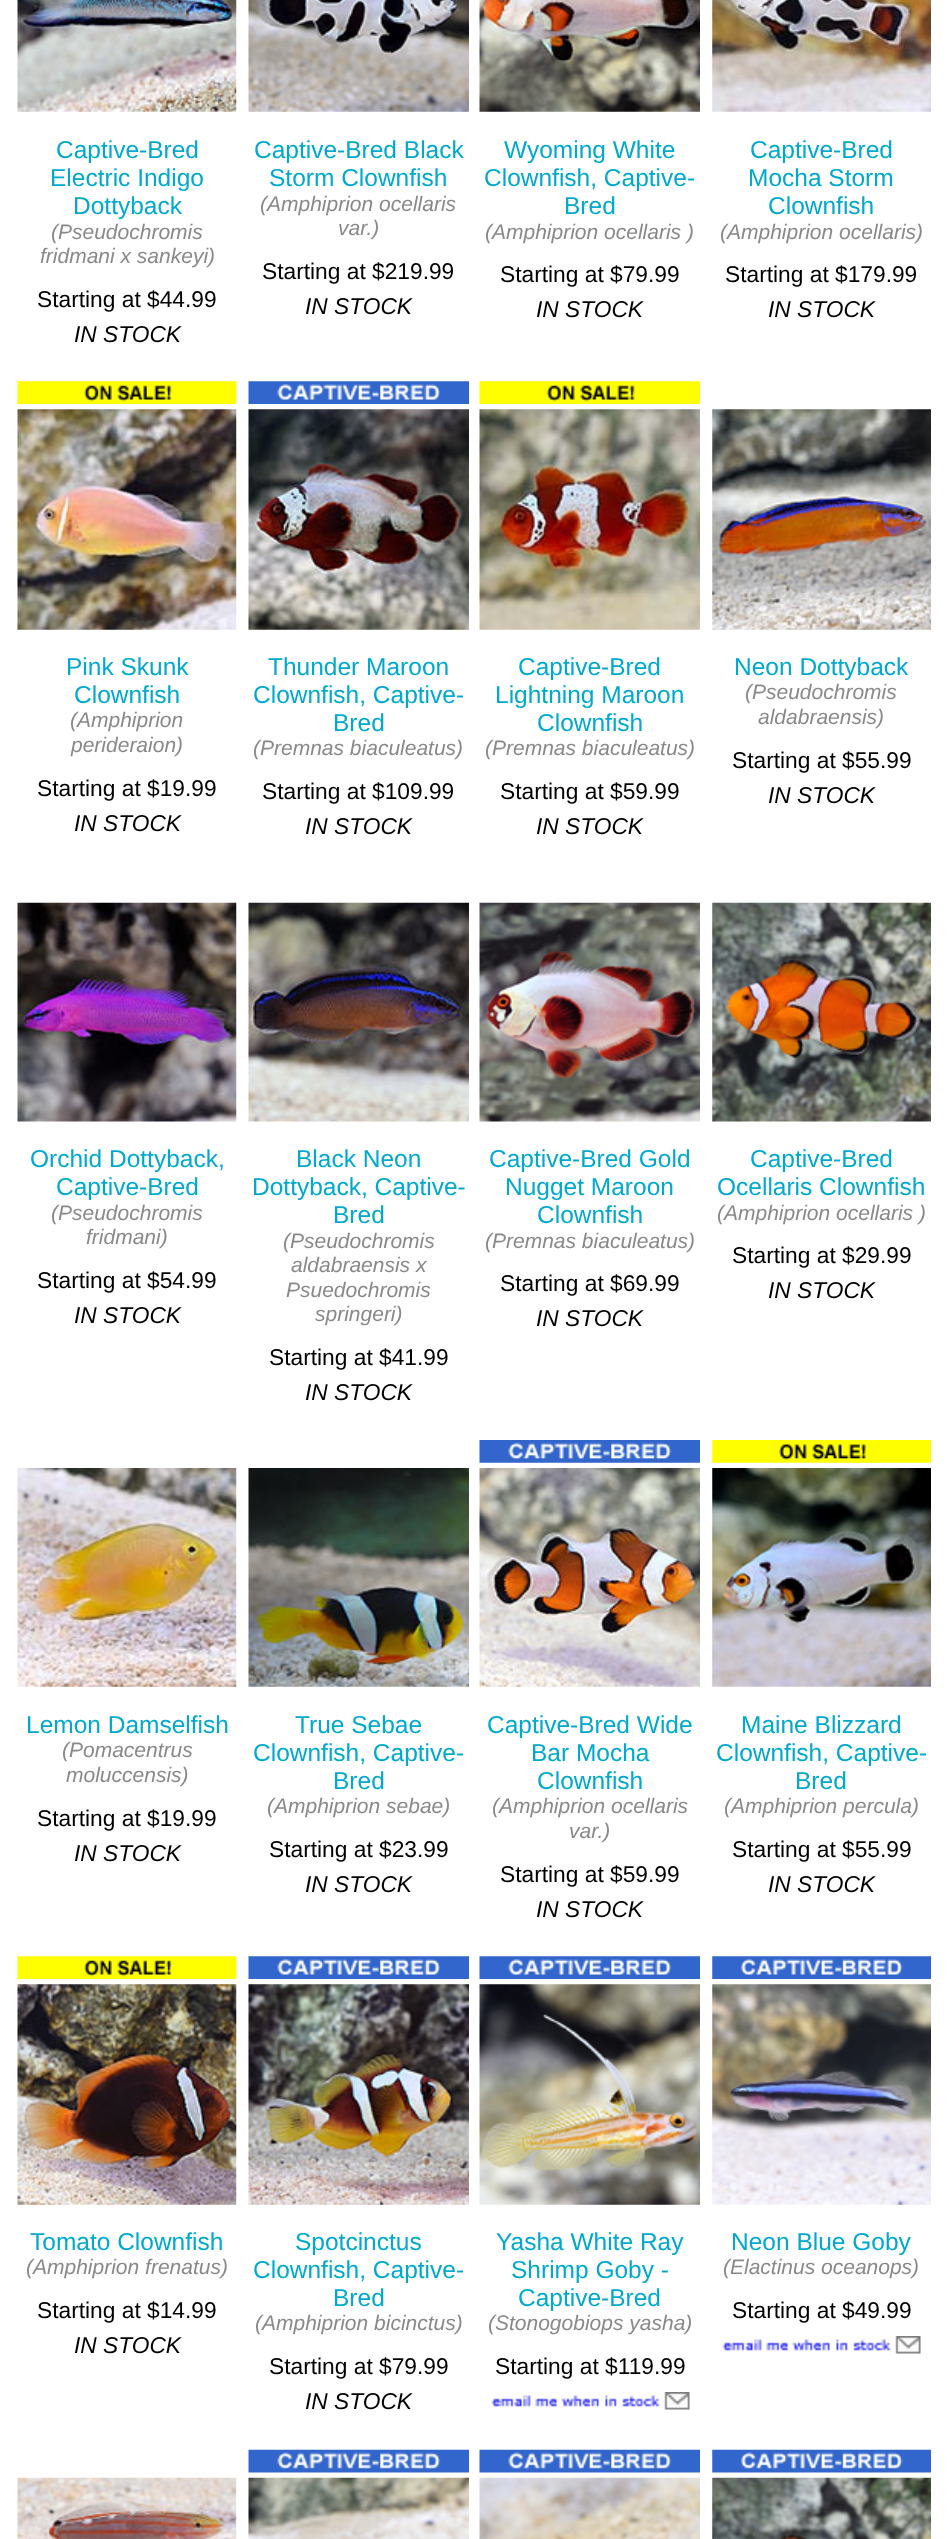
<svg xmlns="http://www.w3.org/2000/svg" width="947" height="2539">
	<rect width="100%" height="100%" fill="#FFFFFF" />
	<image x="17" y="0" width="220" height="112" href="assets/img1.png" />
	<g font-family="Liberation Sans" font-size="24.5" fill="#00A9CE">
		<text x="56" y="158">Captive-Bred</text>
		<text x="50" y="186">Electric Indigo</text>
		<text x="73" y="214">Dottyback</text>
	</g>
	<g font-family="Liberation Sans" font-size="21" font-style="italic" fill="#898989">
		<text x="51" y="239">(Pseudochromis</text>
		<text x="40" y="263">fridmani x sankeyi)</text>
	</g>
	<text x="37" y="307" font-family="Liberation Sans" font-size="22.75" fill="#000000">Starting at $44.99</text>
	<text x="74" y="342" font-family="Liberation Sans" font-size="22.75" font-style="italic" fill="#000000">IN STOCK</text>
	<image x="248" y="0" width="221" height="112" href="assets/img2.png" />
	<g font-family="Liberation Sans" font-size="24.5" fill="#00A9CE">
		<text x="254" y="158">Captive-Bred Black</text>
		<text x="269" y="186">Storm Clownfish</text>
	</g>
	<g font-family="Liberation Sans" font-size="21" font-style="italic" fill="#898989">
		<text x="260" y="211">(Amphiprion ocellaris</text>
		<text x="338" y="235">var.)</text>
	</g>
	<text x="262" y="279" font-family="Liberation Sans" font-size="22.75" fill="#000000">Starting at $219.99</text>
	<text x="305" y="314" font-family="Liberation Sans" font-size="22.75" font-style="italic" fill="#000000">IN STOCK</text>
	<image x="479" y="0" width="221" height="112" href="assets/img3.png" />
	<g font-family="Liberation Sans" font-size="24.5" fill="#00A9CE">
		<text x="504" y="158">Wyoming White</text>
		<text x="484" y="186">Clownfish, Captive-</text>
		<text x="564" y="214">Bred</text>
	</g>
	<text x="485" y="239" font-family="Liberation Sans" font-size="21" font-style="italic" fill="#898989">(Amphiprion ocellaris )</text>
	<text x="500" y="282" font-family="Liberation Sans" font-size="22.75" fill="#000000">Starting at $79.99</text>
	<text x="536" y="317" font-family="Liberation Sans" font-size="22.75" font-style="italic" fill="#000000">IN STOCK</text>
	<image x="712" y="0" width="219" height="112" href="assets/img4.png" />
	<g font-family="Liberation Sans" font-size="24.5" fill="#00A9CE">
		<text x="750" y="158">Captive-Bred</text>
		<text x="748" y="186">Mocha Storm</text>
		<text x="768" y="214">Clownfish</text>
	</g>
	<text x="720" y="239" font-family="Liberation Sans" font-size="21" font-style="italic" fill="#898989">(Amphiprion ocellaris)</text>
	<text x="725" y="282" font-family="Liberation Sans" font-size="22.75" fill="#000000">Starting at $179.99</text>
	<text x="768" y="317" font-family="Liberation Sans" font-size="22.75" font-style="italic" fill="#000000">IN STOCK</text>
	<image x="17" y="381" width="220" height="23" href="assets/img5.png" />
	<image x="17" y="409" width="220" height="221" href="assets/img6.png" />
	<g font-family="Liberation Sans" font-size="24.5" fill="#00A9CE">
		<text x="66" y="675">Pink Skunk</text>
		<text x="74" y="703">Clownfish</text>
	</g>
	<g font-family="Liberation Sans" font-size="21" font-style="italic" fill="#898989">
		<text x="70" y="727">(Amphiprion</text>
		<text x="71" y="752">perideraion)</text>
	</g>
	<text x="37" y="796" font-family="Liberation Sans" font-size="22.75" fill="#000000">Starting at $19.99</text>
	<text x="74" y="831" font-family="Liberation Sans" font-size="22.75" font-style="italic" fill="#000000">IN STOCK</text>
	<image x="248" y="381" width="221" height="23" href="assets/img7.png" />
	<image x="248" y="409" width="221" height="221" href="assets/img8.png" />
	<g font-family="Liberation Sans" font-size="24.5" fill="#00A9CE">
		<text x="268" y="675">Thunder Maroon</text>
		<text x="253" y="703">Clownfish, Captive-</text>
		<text x="333" y="731">Bred</text>
	</g>
	<text x="253" y="755" font-family="Liberation Sans" font-size="21" font-style="italic" fill="#898989">(Premnas biaculeatus)</text>
	<text x="262" y="799" font-family="Liberation Sans" font-size="22.75" fill="#000000">Starting at $109.99</text>
	<text x="305" y="834" font-family="Liberation Sans" font-size="22.75" font-style="italic" fill="#000000">IN STOCK</text>
	<image x="479" y="381" width="221" height="23" href="assets/img9.png" />
	<image x="479" y="409" width="221" height="221" href="assets/img10.png" />
	<g font-family="Liberation Sans" font-size="24.5" fill="#00A9CE">
		<text x="518" y="675">Captive-Bred</text>
		<text x="495" y="703">Lightning Maroon</text>
		<text x="537" y="731">Clownfish</text>
	</g>
	<text x="485" y="755" font-family="Liberation Sans" font-size="21" font-style="italic" fill="#898989">(Premnas biaculeatus)</text>
	<text x="500" y="799" font-family="Liberation Sans" font-size="22.75" fill="#000000">Starting at $59.99</text>
	<text x="536" y="834" font-family="Liberation Sans" font-size="22.75" font-style="italic" fill="#000000">IN STOCK</text>
	<image x="712" y="409" width="219" height="221" href="assets/img11.png" />
	<text x="734" y="675" font-family="Liberation Sans" font-size="24.5" fill="#00A9CE">Neon Dottyback</text>
	<g font-family="Liberation Sans" font-size="21" font-style="italic" fill="#898989">
		<text x="745" y="699">(Pseudochromis</text>
		<text x="758" y="724">aldabraensis)</text>
	</g>
	<text x="732" y="768" font-family="Liberation Sans" font-size="22.75" fill="#000000">Starting at $55.99</text>
	<text x="768" y="803" font-family="Liberation Sans" font-size="22.75" font-style="italic" fill="#000000">IN STOCK</text>
	<image x="17" y="902" width="220" height="220" href="assets/img12.png" />
	<g font-family="Liberation Sans" font-size="24.5" fill="#00A9CE">
		<text x="30" y="1167">Orchid Dottyback,</text>
		<text x="56" y="1195">Captive-Bred</text>
	</g>
	<g font-family="Liberation Sans" font-size="21" font-style="italic" fill="#898989">
		<text x="51" y="1220">(Pseudochromis</text>
		<text x="86" y="1244">fridmani)</text>
	</g>
	<text x="37" y="1288" font-family="Liberation Sans" font-size="22.75" fill="#000000">Starting at $54.99</text>
	<text x="74" y="1323" font-family="Liberation Sans" font-size="22.75" font-style="italic" fill="#000000">IN STOCK</text>
	<image x="248" y="902" width="221" height="220" href="assets/img13.png" />
	<g font-family="Liberation Sans" font-size="24.5" fill="#00A9CE">
		<text x="296" y="1167">Black Neon</text>
		<text x="252" y="1195">Dottyback, Captive-</text>
		<text x="333" y="1223">Bred</text>
	</g>
	<g font-family="Liberation Sans" font-size="21" font-style="italic" fill="#898989">
		<text x="283" y="1248">(Pseudochromis</text>
		<text x="291" y="1272">aldabraensis x</text>
		<text x="286" y="1297">Psuedochromis</text>
		<text x="315" y="1321">springeri)</text>
	</g>
	<text x="269" y="1365" font-family="Liberation Sans" font-size="22.75" fill="#000000">Starting at $41.99</text>
	<text x="305" y="1400" font-family="Liberation Sans" font-size="22.75" font-style="italic" fill="#000000">IN STOCK</text>
	<image x="479" y="902" width="221" height="220" href="assets/img14.png" />
	<g font-family="Liberation Sans" font-size="24.5" fill="#00A9CE">
		<text x="489" y="1167">Captive-Bred Gold</text>
		<text x="505" y="1195">Nugget Maroon</text>
		<text x="537" y="1223">Clownfish</text>
	</g>
	<text x="485" y="1248" font-family="Liberation Sans" font-size="21" font-style="italic" fill="#898989">(Premnas biaculeatus)</text>
	<text x="500" y="1291" font-family="Liberation Sans" font-size="22.75" fill="#000000">Starting at $69.99</text>
	<text x="536" y="1326" font-family="Liberation Sans" font-size="22.75" font-style="italic" fill="#000000">IN STOCK</text>
	<image x="712" y="902" width="219" height="220" href="assets/img15.png" />
	<g font-family="Liberation Sans" font-size="24.5" fill="#00A9CE">
		<text x="750" y="1167">Captive-Bred</text>
		<text x="717" y="1195">Ocellaris Clownfish</text>
	</g>
	<text x="717" y="1220" font-family="Liberation Sans" font-size="21" font-style="italic" fill="#898989">(Amphiprion ocellaris )</text>
	<text x="732" y="1263" font-family="Liberation Sans" font-size="22.75" fill="#000000">Starting at $29.99</text>
	<text x="768" y="1298" font-family="Liberation Sans" font-size="22.75" font-style="italic" fill="#000000">IN STOCK</text>
	<image x="17" y="1468" width="220" height="219" href="assets/img16.png" />
	<text x="26" y="1733" font-family="Liberation Sans" font-size="24.5" fill="#00A9CE">Lemon Damselfish</text>
	<g font-family="Liberation Sans" font-size="21" font-style="italic" fill="#898989">
		<text x="62" y="1757">(Pomacentrus</text>
		<text x="66" y="1782">moluccensis)</text>
	</g>
	<text x="37" y="1826" font-family="Liberation Sans" font-size="22.75" fill="#000000">Starting at $19.99</text>
	<text x="74" y="1861" font-family="Liberation Sans" font-size="22.75" font-style="italic" fill="#000000">IN STOCK</text>
	<image x="248" y="1468" width="221" height="219" href="assets/img17.png" />
	<g font-family="Liberation Sans" font-size="24.5" fill="#00A9CE">
		<text x="295" y="1733">True Sebae</text>
		<text x="253" y="1761">Clownfish, Captive-</text>
		<text x="333" y="1789">Bred</text>
	</g>
	<text x="267" y="1813" font-family="Liberation Sans" font-size="21" font-style="italic" fill="#898989">(Amphiprion sebae)</text>
	<text x="269" y="1857" font-family="Liberation Sans" font-size="22.75" fill="#000000">Starting at $23.99</text>
	<text x="305" y="1892" font-family="Liberation Sans" font-size="22.75" font-style="italic" fill="#000000">IN STOCK</text>
	<image x="479" y="1440" width="221" height="23" href="assets/img18.png" />
	<image x="479" y="1468" width="221" height="219" href="assets/img19.png" />
	<g font-family="Liberation Sans" font-size="24.5" fill="#00A9CE">
		<text x="487" y="1733">Captive-Bred Wide</text>
		<text x="531" y="1761">Bar Mocha</text>
		<text x="537" y="1789">Clownfish</text>
	</g>
	<g font-family="Liberation Sans" font-size="21" font-style="italic" fill="#898989">
		<text x="492" y="1813">(Amphiprion ocellaris</text>
		<text x="569" y="1838">var.)</text>
	</g>
	<text x="500" y="1882" font-family="Liberation Sans" font-size="22.75" fill="#000000">Starting at $59.99</text>
	<text x="536" y="1917" font-family="Liberation Sans" font-size="22.75" font-style="italic" fill="#000000">IN STOCK</text>
	<image x="712" y="1440" width="219" height="23" href="assets/img20.png" />
	<image x="712" y="1468" width="219" height="219" href="assets/img21.png" />
	<g font-family="Liberation Sans" font-size="24.5" fill="#00A9CE">
		<text x="741" y="1733">Maine Blizzard</text>
		<text x="716" y="1761">Clownfish, Captive-</text>
		<text x="795" y="1789">Bred</text>
	</g>
	<text x="724" y="1813" font-family="Liberation Sans" font-size="21" font-style="italic" fill="#898989">(Amphiprion percula)</text>
	<text x="732" y="1857" font-family="Liberation Sans" font-size="22.75" fill="#000000">Starting at $55.99</text>
	<text x="768" y="1892" font-family="Liberation Sans" font-size="22.75" font-style="italic" fill="#000000">IN STOCK</text>
	<image x="17" y="1956" width="220" height="23" href="assets/img5.png" />
	<image x="17" y="1984" width="220" height="221" href="assets/img22.png" />
	<text x="30" y="2250" font-family="Liberation Sans" font-size="24.5" fill="#00A9CE">Tomato Clownfish</text>
	<text x="26" y="2274" font-family="Liberation Sans" font-size="21" font-style="italic" fill="#898989">(Amphiprion frenatus)</text>
	<text x="37" y="2318" font-family="Liberation Sans" font-size="22.75" fill="#000000">Starting at $14.99</text>
	<text x="74" y="2353" font-family="Liberation Sans" font-size="22.75" font-style="italic" fill="#000000">IN STOCK</text>
	<image x="248" y="1956" width="221" height="23" href="assets/img7.png" />
	<image x="248" y="1984" width="221" height="221" href="assets/img23.png" />
	<g font-family="Liberation Sans" font-size="24.5" fill="#00A9CE">
		<text x="295" y="2250">Spotcinctus</text>
		<text x="253" y="2278">Clownfish, Captive-</text>
		<text x="333" y="2306">Bred</text>
	</g>
	<text x="255" y="2330" font-family="Liberation Sans" font-size="21" font-style="italic" fill="#898989">(Amphiprion bicinctus)</text>
	<text x="269" y="2374" font-family="Liberation Sans" font-size="22.75" fill="#000000">Starting at $79.99</text>
	<text x="305" y="2409" font-family="Liberation Sans" font-size="22.75" font-style="italic" fill="#000000">IN STOCK</text>
	<image x="479" y="1956" width="221" height="23" href="assets/img7.png" />
	<image x="479" y="1984" width="221" height="221" href="assets/img24.png" />
	<g font-family="Liberation Sans" font-size="24.5" fill="#00A9CE">
		<text x="496" y="2250">Yasha White Ray</text>
		<text x="511" y="2278">Shrimp Goby -</text>
		<text x="518" y="2306">Captive-Bred</text>
	</g>
	<text x="488" y="2330" font-family="Liberation Sans" font-size="21" font-style="italic" fill="#898989">(Stonogobiops yasha)</text>
	<text x="495" y="2374" font-family="Liberation Sans" font-size="22.75" fill="#000000">Starting at $119.99</text>
	<image x="491" y="2392" width="199" height="18" href="assets/img25.png" />
	<image x="712" y="1956" width="219" height="23" href="assets/img26.png" />
	<image x="712" y="1984" width="219" height="221" href="assets/img27.png" />
	<text x="731" y="2250" font-family="Liberation Sans" font-size="24.5" fill="#00A9CE">Neon Blue Goby</text>
	<text x="723" y="2274" font-family="Liberation Sans" font-size="21" font-style="italic" fill="#898989">(Elactinus oceanops)</text>
	<text x="732" y="2318" font-family="Liberation Sans" font-size="22.75" fill="#000000">Starting at $49.99</text>
	<image x="722" y="2336" width="199" height="18" href="assets/img28.png" />
	<image x="17" y="2477" width="220" height="62" href="assets/img29.png" />
	<image x="248" y="2449" width="221" height="24" href="assets/img30.png" />
	<image x="248" y="2477" width="221" height="62" href="assets/img31.png" />
	<image x="479" y="2449" width="221" height="24" href="assets/img30.png" />
	<image x="479" y="2477" width="221" height="62" href="assets/img32.png" />
	<image x="712" y="2449" width="219" height="24" href="assets/img33.png" />
	<image x="712" y="2477" width="219" height="62" href="assets/img34.png" />
</svg>
